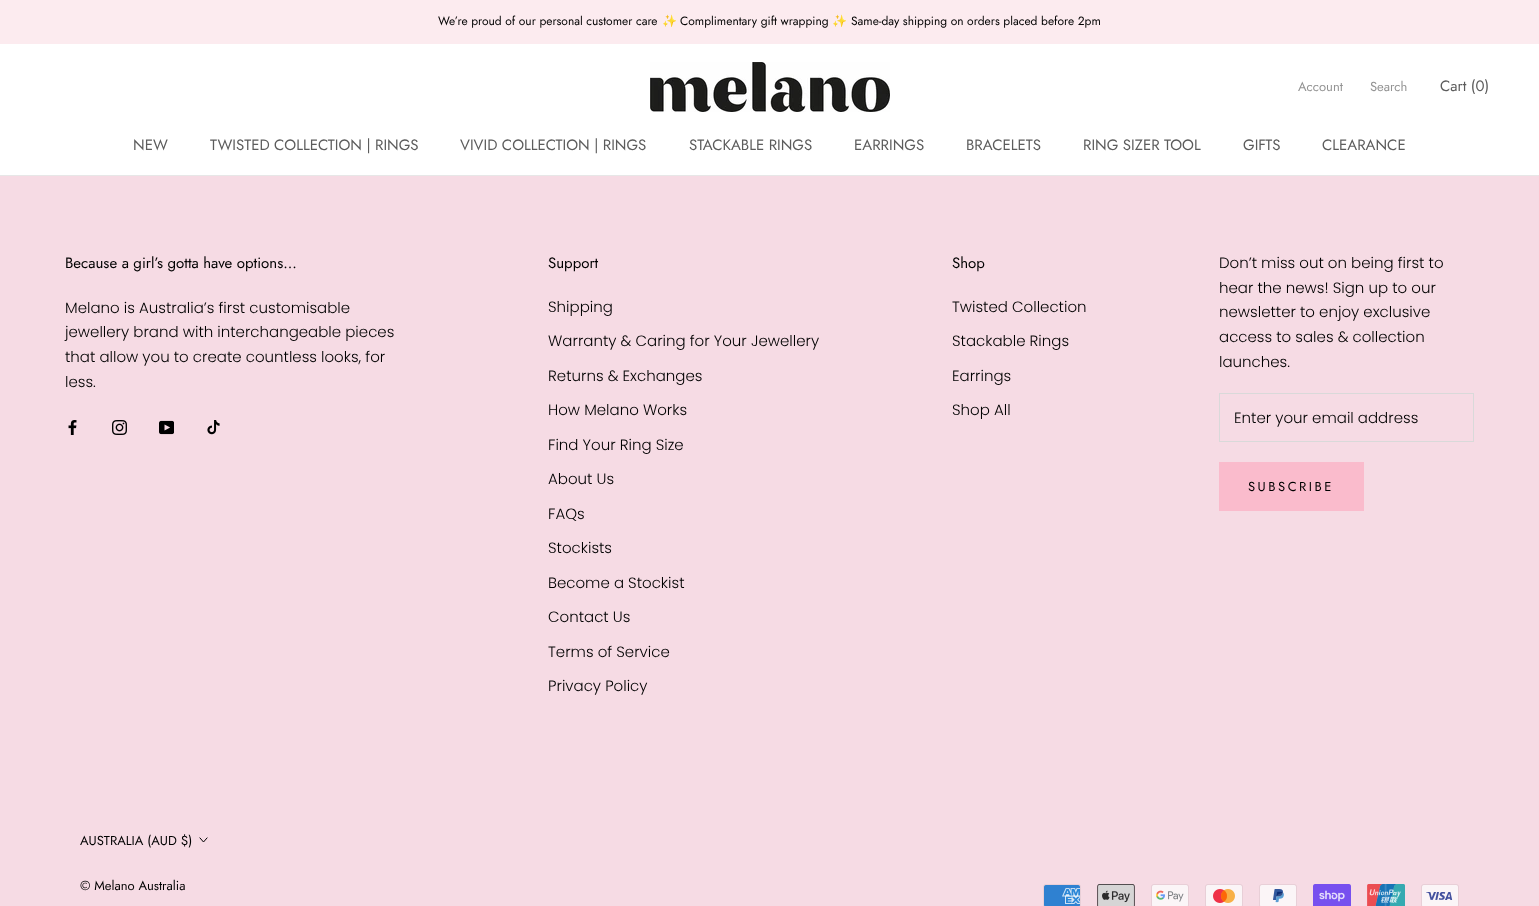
<svg xmlns="http://www.w3.org/2000/svg" width="1539" height="906">
	<rect width="100%" height="100%" fill="#FFFFFF" />
	<rect x="0" y="0" width="1539" height="44" fill="#FCEBEF" />
	<text x="438" y="25" font-family="Jost" font-size="12" fill="#000000">We’re proud of our personal customer care</text>
	<text x="662" y="25" font-family="Noto Color Emoji" font-size="12" fill="#000000">✨</text>
	<text x="680" y="25" font-family="Jost" font-size="12" fill="#000000">Complimentary gift wrapping</text>
	<text x="832" y="25" font-family="Noto Color Emoji" font-size="12" fill="#000000">✨</text>
	<text x="851" y="25" font-family="Jost" font-size="12" fill="#000000">Same-day shipping on orders placed before 2pm</text>
	<rect x="0" y="175" width="1539" height="1" fill="#E7E7E7" />
	<image x="650" y="62" width="240" height="50" href="assets/img1.png" />
	<g font-family="Jost" font-size="13" fill="#939393">
		<text x="1298" y="91">Account</text>
		<text x="1370" y="91">Search</text>
	</g>
	<g font-family="Jost" font-size="15" fill="#5C5C5C">
		<text x="1440" y="91">Cart (0)</text>
		<text x="133" y="150">NEW</text>
		<text x="210" y="150">TWISTED COLLECTION | RINGS</text>
		<text x="460" y="150">VIVID COLLECTION | RINGS</text>
		<text x="689" y="150">STACKABLE RINGS</text>
		<text x="854" y="150">EARRINGS</text>
		<text x="966" y="150">BRACELETS</text>
		<text x="1083" y="150">RING SIZER TOOL</text>
		<text x="1243" y="150">GIFTS</text>
		<text x="1322" y="150">CLEARANCE</text>
	</g>
	<rect x="0" y="176" width="1539" height="730" fill="#F6DBE4" />
	<text x="65" y="268" font-family="Jost" font-size="15" fill="#000000">Because a girl’s gotta have options…</text>
	<g font-family="Poppins" font-size="15" font-weight="300" fill="#000000">
		<text x="65" y="313">Melano is Australia’s first customisable</text>
		<text x="65" y="337">jewellery brand with interchangeable pieces</text>
		<text x="65" y="362">that allow you to create countless looks, for</text>
		<text x="65" y="387">less.</text>
	</g>
	<image x="68" y="420" width="9" height="15" href="assets/img2.png" />
	<image x="112" y="420" width="15" height="15" href="assets/img3.png" />
	<image x="159" y="420" width="15" height="15" href="assets/img4.png" />
	<image x="207" y="420" width="13" height="15" href="assets/img5.png" />
	<text x="548" y="268" font-family="Jost" font-size="15" fill="#000000">Support</text>
	<g font-family="Poppins" font-size="15" font-weight="300" fill="#000000">
		<text x="548" y="312">Shipping</text>
		<text x="548" y="346">Warranty &amp; Caring for Your Jewellery</text>
		<text x="548" y="381">Returns &amp; Exchanges</text>
		<text x="548" y="415">How Melano Works</text>
		<text x="548" y="450">Find Your Ring Size</text>
		<text x="548" y="484">About Us</text>
		<text x="548" y="519">FAQs</text>
		<text x="548" y="553">Stockists</text>
		<text x="548" y="588">Become a Stockist</text>
		<text x="548" y="622">Contact Us</text>
		<text x="548" y="657">Terms of Service</text>
		<text x="548" y="691">Privacy Policy</text>
	</g>
	<text x="952" y="268" font-family="Jost" font-size="15" fill="#000000">Shop</text>
	<g font-family="Poppins" font-size="15" font-weight="300" fill="#000000">
		<text x="952" y="312">Twisted Collection</text>
		<text x="952" y="346">Stackable Rings</text>
		<text x="952" y="381">Earrings</text>
		<text x="952" y="415">Shop All</text>
		<text x="1219" y="268">Don’t miss out on being first to</text>
		<text x="1219" y="293">hear the news! Sign up to our</text>
		<text x="1219" y="317">newsletter to enjoy exclusive</text>
		<text x="1219" y="342">access to sales &amp; collection</text>
		<text x="1219" y="367">launches.</text>
	</g>
	<rect x="1219.5" y="393.5" width="254" height="48" fill="none" stroke="#D9D9D9" />
	<text x="1234" y="423" font-family="Poppins" font-size="15" font-weight="300" fill="#000000">Enter your email address</text>
	<rect x="1219.5" y="462.5" width="144" height="48" fill="none" stroke="#FABBCC" />
	<rect x="1220" y="463" width="143" height="47" fill="#FABBCC" />
	<text x="1248" y="491" font-family="Jost" font-size="13" letter-spacing="2.5" fill="#000000">SUBSCRIBE</text>
	<text x="80" y="845" font-family="Jost" font-size="13" fill="#000000">AUSTRALIA (AUD $)</text>
	<path d="M207 838L203.5 842L200 838" fill="none" stroke="#000000" stroke-linecap="square" />
	<text x="80" y="890" font-family="Jost" font-size="13" fill="#000000">© Melano Australia</text>
	<image x="1043" y="884" width="38" height="22" href="assets/img6.png" />
	<image x="1097" y="884" width="38" height="22" href="assets/img7.png" />
	<image x="1151" y="884" width="38" height="22" href="assets/img8.png" />
	<image x="1205" y="884" width="38" height="22" href="assets/img9.png" />
	<image x="1259" y="884" width="38" height="22" href="assets/img10.png" />
	<image x="1313" y="884" width="38" height="22" href="assets/img11.png" />
	<image x="1367" y="884" width="38" height="22" href="assets/img12.png" />
	<image x="1421" y="884" width="38" height="22" href="assets/img13.png" />
</svg>
